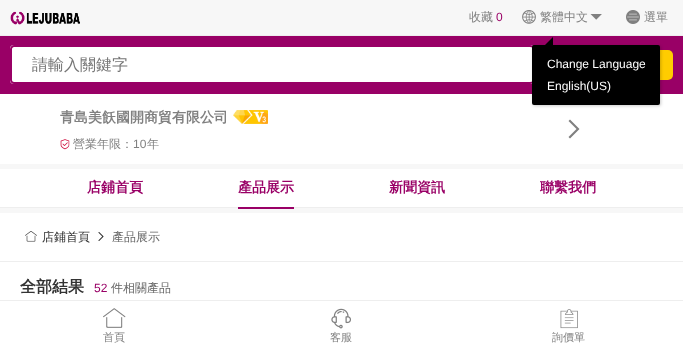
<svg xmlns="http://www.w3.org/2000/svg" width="683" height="351">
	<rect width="100%" height="100%" fill="#FFFFFF" />
	<rect x="0" y="0" width="683" height="35" fill="#F7F7F7" />
	<rect x="0" y="35" width="683" height="1" fill="#EEEEEE" />
	<image x="10" y="11" width="70" height="14" href="assets/img1.png" />
	<text x="469" y="21" font-family="WenQuanYi Zen Hei" font-size="12" font-weight="500" fill="#808080">收藏</text>
	<text x="496" y="21" font-family="Liberation Sans" font-size="12" fill="#990066">0</text>
	<image x="522" y="10" width="14" height="14" href="assets/img2.png" />
	<text x="540" y="21" font-family="WenQuanYi Zen Hei" font-size="12" font-weight="500" fill="#808080">繁體中文</text>
	<image x="590" y="14" width="12" height="6" href="assets/img3.png" />
	<image x="626" y="10" width="14" height="14" href="assets/img4.png" />
	<text x="644" y="21" font-family="WenQuanYi Zen Hei" font-size="12" font-weight="500" fill="#808080">選單</text>
	<rect x="0" y="36" width="683" height="58" fill="#990066" />
	<rect x="10" y="45" width="524" height="39" rx="4" fill="#FFFFFF" />
	<path d="M14 45H530C532 45 534 47 534 49V80C534 82 532 84 530 84H14C12 84 10 82 10 80V49C10 47 12 45 14 45ZM14 47H530C532 47 534 48 534 49V80C534 81 532 82 530 82H14C13 82 12 81 12 80V49C12 48 13 47 14 47Z" fill="#990066" fill-rule="evenodd" />
	<text x="32" y="70" font-family="WenQuanYi Zen Hei" font-size="16" font-weight="500" fill="#757575">請輸入關鍵字</text>
	<rect x="620" y="50" width="53" height="30" rx="5" fill="#FFCC00" />
	<rect x="0" y="164" width="683" height="5" fill="#F7F7F7" />
	<text x="60" y="122" font-family="WenQuanYi Zen Hei" font-size="14" font-weight="700" fill="#808080">青島美飫國開商貿有限公司</text>
	<image x="233" y="110" width="35" height="14" href="assets/img5.png" />
	<image x="60" y="139" width="10" height="11" href="assets/img6.png" />
	<text x="73" y="148" font-family="WenQuanYi Zen Hei" font-size="12" font-weight="500" fill="#808080">營業年限：</text>
	<text x="133" y="148" font-family="Liberation Sans" font-size="12" fill="#808080">10</text>
	<text x="147" y="148" font-family="WenQuanYi Zen Hei" font-size="12" font-weight="500" fill="#808080">年</text>
	<path d="M568.5 121L570 119.5L579.5 129L570 138.5L568.5 137L576.5 129Z" fill="#808080" />
	<rect x="533" y="46" width="128" height="60" rx="2" fill="#000000" fill-opacity="0.2" filter="blur(1.5px)" />
	<rect x="532" y="45" width="128" height="60" rx="2" fill="#000000" />
	<path d="M553 37V53L545 45Z" fill="#000000" />
	<g font-family="Liberation Sans" font-size="12" fill="#FFFFFF">
		<text x="547" y="68">Change Language</text>
		<text x="547" y="90">English(US)</text>
	</g>
	<rect x="0" y="207" width="683" height="1" fill="#EEEEEE" />
	<text x="87" y="192" font-family="WenQuanYi Zen Hei" font-size="14" font-weight="700" fill="#990066">店鋪首頁</text>
	<rect x="0" y="208" width="683" height="5" fill="#F7F7F7" />
	<rect x="238" y="207" width="56" height="2" fill="#990066" />
	<g font-family="WenQuanYi Zen Hei" font-size="14" font-weight="700" fill="#990066">
		<text x="238" y="192">產品展示</text>
		<text x="389" y="192">新聞資訊</text>
		<text x="540" y="192">聯繫我們</text>
	</g>
	<rect x="0" y="261" width="683" height="1" fill="#EEEEEE" />
	<image x="25" y="231" width="12" height="11" href="assets/img7.png" />
	<text x="42" y="241" font-family="WenQuanYi Zen Hei" font-size="12" font-weight="500" fill="#333333">店鋪首頁</text>
	<image x="98" y="232" width="6" height="9" href="assets/img8.png" />
	<text x="112" y="241" font-family="WenQuanYi Zen Hei" font-size="12" font-weight="500" fill="#666666">產品展示</text>
	<text x="20" y="292" font-family="WenQuanYi Zen Hei" font-size="16" font-weight="700" fill="#333333">全部結果</text>
	<text x="94" y="292" font-family="Liberation Sans" font-size="12" fill="#990066">52</text>
	<text x="111" y="292" font-family="WenQuanYi Zen Hei" font-size="12" font-weight="500" fill="#666666">件相關產品</text>
	<rect x="0" y="300" width="683" height="1" fill="#EEEEEE" />
	<image x="103" y="308" width="23" height="20" href="assets/img9.png" />
	<text x="103" y="341" font-family="WenQuanYi Zen Hei" font-size="11" font-weight="500" fill="#808080">首頁</text>
	<image x="331" y="308" width="20" height="21" href="assets/img10.png" />
	<text x="330" y="341" font-family="WenQuanYi Zen Hei" font-size="11" font-weight="500" fill="#808080">客服</text>
	<image x="560" y="309" width="18" height="20" href="assets/img11.png" />
	<text x="552" y="341" font-family="WenQuanYi Zen Hei" font-size="11" font-weight="500" fill="#808080">詢價單</text>
</svg>
